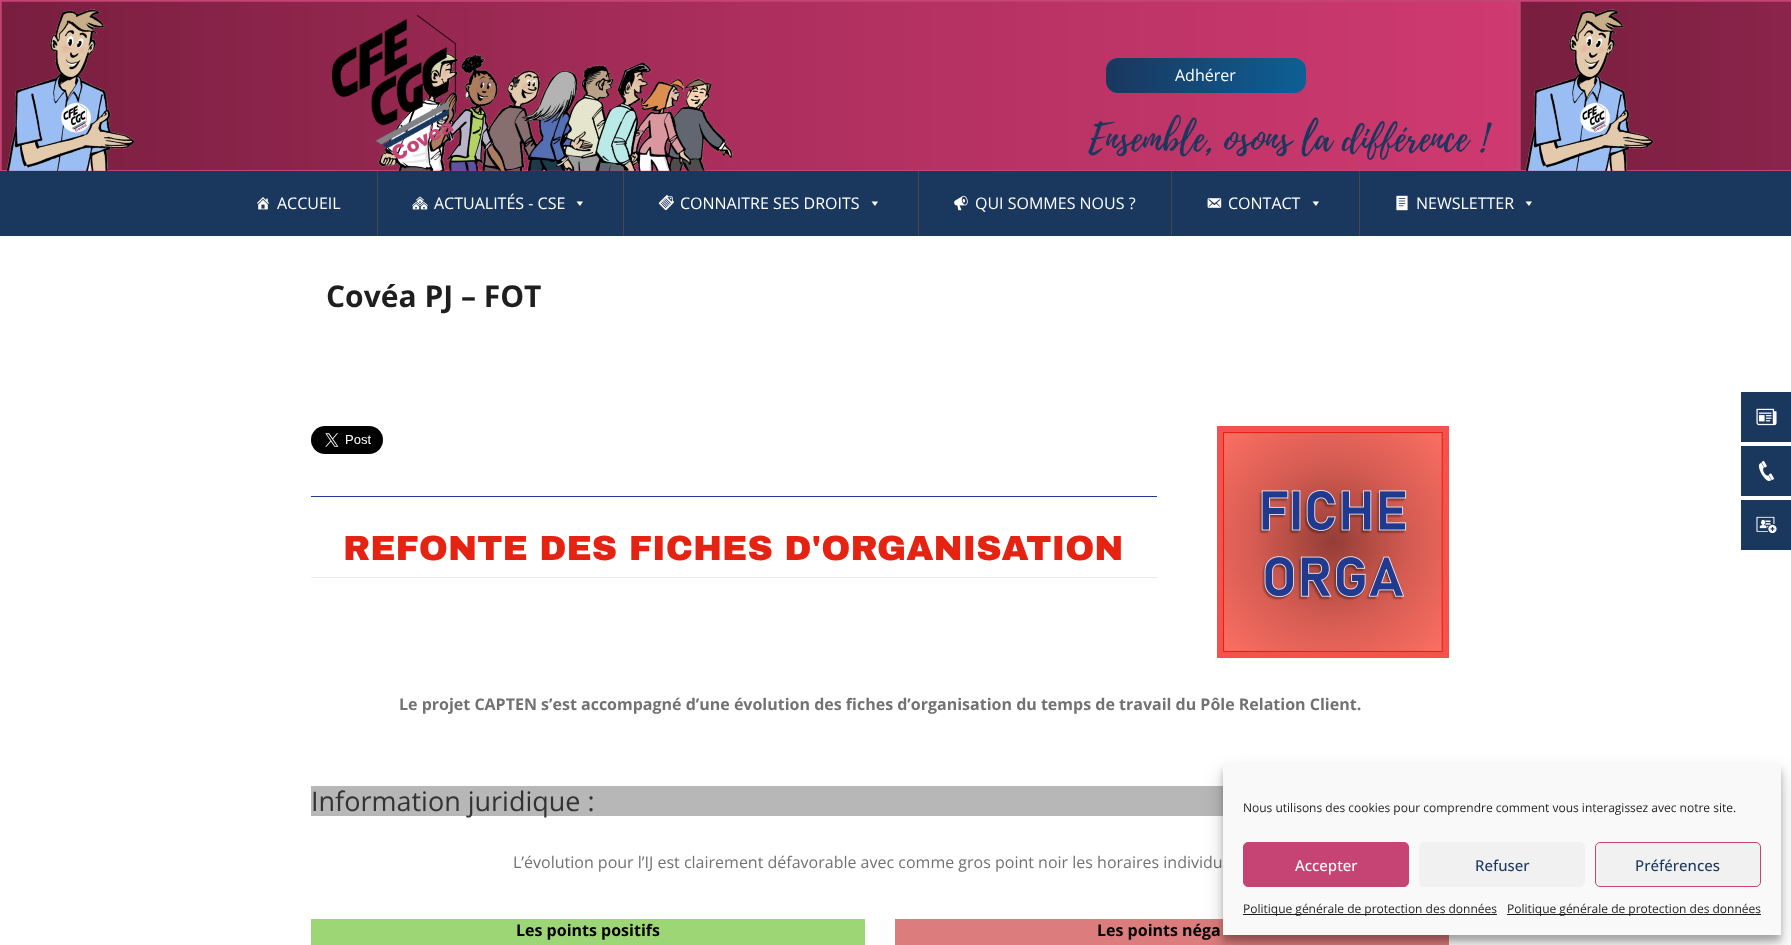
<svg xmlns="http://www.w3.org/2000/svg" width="1791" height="945">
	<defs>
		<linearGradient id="g1" gradientUnits="userSpaceOnUse" x1="1106" y1="76" x2="1306" y2="76"><stop offset="0" stop-color="#1A375E" /><stop offset="1" stop-color="#1A375E" stop-opacity="0.5" /></linearGradient>
	</defs>
	<rect width="100%" height="100%" fill="#FFFFFF" />
	<image x="0" y="0" width="1791" height="171" href="assets/img1.png" />
	<image x="332" y="15" width="125" height="145" href="assets/img2.png" />
	<rect x="1106" y="58" width="200" height="35" rx="12" fill="#0088CC" />
	<rect x="1106" y="58" width="200" height="35" rx="12" fill="url(#g1)" />
	<text x="1175" y="81" font-family="Open Sans" font-size="16" fill="#FFFFFF">Adhérer</text>
	<rect x="0" y="171" width="1791" height="65" fill="#1A375E" />
	<image x="257" y="197" width="12" height="13" href="assets/img3.png" />
	<text x="277" y="209" font-family="Open Sans" font-size="16" fill="#FFFFFF">ACCUEIL</text>
	<rect x="377" y="171" width="1" height="65" fill="#314B6E" />
	<rect x="376" y="171" width="1" height="65" fill="#333333" />
	<image x="412" y="196" width="16" height="14" href="assets/img4.png" />
	<text x="434" y="209" font-family="Open Sans" font-size="16" fill="#FFFFFF">ACTUALITÉS - CSE</text>
	<path d="M583 201.5L580 206L576.5 201.5Z" fill="#FFFFFF" />
	<rect x="623" y="171" width="1" height="65" fill="#314B6E" />
	<rect x="622" y="171" width="1" height="65" fill="#333333" />
	<image x="658" y="195" width="16" height="16" href="assets/img5.png" />
	<text x="680" y="209" font-family="Open Sans" font-size="16" fill="#FFFFFF">CONNAITRE SES DROITS</text>
	<path d="M878 201.5L875 206L871.5 201.5Z" fill="#FFFFFF" />
	<rect x="918" y="171" width="1" height="65" fill="#314B6E" />
	<rect x="917" y="171" width="1" height="65" fill="#333333" />
	<image x="954" y="195" width="14" height="16" href="assets/img6.png" />
	<text x="975" y="209" font-family="Open Sans" font-size="16" fill="#FFFFFF">QUI SOMMES NOUS ?</text>
	<rect x="1171" y="171" width="1" height="65" fill="#314B6E" />
	<rect x="1170" y="171" width="1" height="65" fill="#333333" />
	<image x="1207" y="198" width="15" height="10" href="assets/img7.png" />
	<text x="1228" y="209" font-family="Open Sans" font-size="16" fill="#FFFFFF">CONTACT</text>
	<path d="M1319 201.5L1316 206L1312.5 201.5Z" fill="#FFFFFF" />
	<rect x="1359" y="171" width="1" height="65" fill="#314B6E" />
	<rect x="1358" y="171" width="1" height="65" fill="#333333" />
	<image x="1396" y="195" width="12" height="16" href="assets/img8.png" />
	<text x="1416" y="209" font-family="Open Sans" font-size="16" fill="#FFFFFF">NEWSLETTER</text>
	<path d="M1532 201.5L1529 206L1525.5 201.5Z" fill="#FFFFFF" />
	<text x="326" y="307" font-family="Open Sans" font-size="30" font-weight="700" fill="#1E1E1E">Covéa PJ – FOT</text>
	<image x="311" y="426" width="72" height="28" href="assets/img9.png" />
	<rect x="311" y="496" width="846" height="1" fill="#213A8F" />
	<text x="343" y="560" font-family="Archivo Black" font-size="35" font-weight="900" fill="#E42313">REFONTE DES FICHES D'ORGANISATION</text>
	<rect x="311" y="577" width="846" height="1" fill="#EBEBEB" />
	<rect x="1217" y="426" width="232" height="232" fill="#F4524D" />
	<image x="1223" y="432" width="220" height="220" href="assets/img10.png" />
	<text x="399" y="710" font-family="Open Sans" font-size="16" font-weight="700" fill="#727272">Le projet CAPTEN s’est accompagné d’une évolution des fiches d’organisation du temps de travail du Pôle Relation Client.</text>
	<rect x="311" y="786" width="912" height="30" fill="#B7B7B7" />
	<text x="311" y="811" font-family="Open Sans" font-size="27" fill="#333333">Information juridique :</text>
	<text x="513" y="868" font-family="Open Sans" font-size="16" fill="#727272">L’évolution pour l’IJ est clairement défavorable avec comme gros point noir les horaires individu</text>
	<rect x="311" y="919" width="554" height="26" fill="#9DD675" />
	<text x="516" y="936" font-family="Open Sans" font-size="16" font-weight="700" fill="#000000">Les points positifs</text>
	<rect x="895" y="919" width="554" height="26" fill="#DD7C7C" />
	<text x="1097" y="936" font-family="Open Sans" font-size="16" font-weight="700" fill="#000000">Les points néga</text>
	<rect x="1741" y="392" width="50" height="50" fill="#1A375E" />
	<image x="1756" y="408" width="21" height="18" href="assets/img11.png" />
	<rect x="1741" y="446" width="50" height="50" fill="#1A375E" />
	<image x="1758" y="460" width="16" height="21" href="assets/img12.png" />
	<rect x="1741" y="500" width="50" height="50" fill="#1A375E" />
	<image x="1756" y="516" width="21" height="18" href="assets/img13.png" />
	<rect x="1223" y="770" width="558" height="171" fill="#000000" fill-opacity="0.23" filter="blur(3px)" />
	<rect x="1223" y="774" width="558" height="171" fill="#000000" fill-opacity="0.19" filter="blur(10px)" />
	<rect x="1223" y="764" width="558" height="171" fill="#F9F9F9" />
	<text x="1243" y="812" font-family="Open Sans" font-size="12" fill="#1E1E1E">Nous utilisons des cookies pour comprendre comment vous interagissez avec notre site.</text>
	<rect x="1243.5" y="842.5" width="165" height="44" rx="4.5" fill="#C54473" stroke="#C54473" />
	<text x="1295" y="871" font-family="Open Sans" font-size="15" font-weight="500" fill="#FFFFFF">Accepter</text>
	<rect x="1419" y="842" width="166" height="45" rx="5" fill="#F1F1F1" />
	<text x="1475" y="871" font-family="Open Sans" font-size="15" font-weight="500" fill="#1A375E">Refuser</text>
	<rect x="1595.5" y="842.5" width="165" height="44" rx="4.5" fill="#F1F1F1" stroke="#C54473" />
	<text x="1635" y="871" font-family="Open Sans" font-size="15" font-weight="500" fill="#1A375E">Préférences</text>
	<rect x="1243" y="914" width="254" height="1" fill="#191E23" />
	<text x="1243" y="913" font-family="Open Sans" font-size="12" fill="#1E1E1E">Politique générale de protection des données</text>
	<rect x="1507" y="914" width="254" height="1" fill="#191E23" />
	<text x="1507" y="913" font-family="Open Sans" font-size="12" fill="#1E1E1E">Politique générale de protection des données</text>
</svg>
